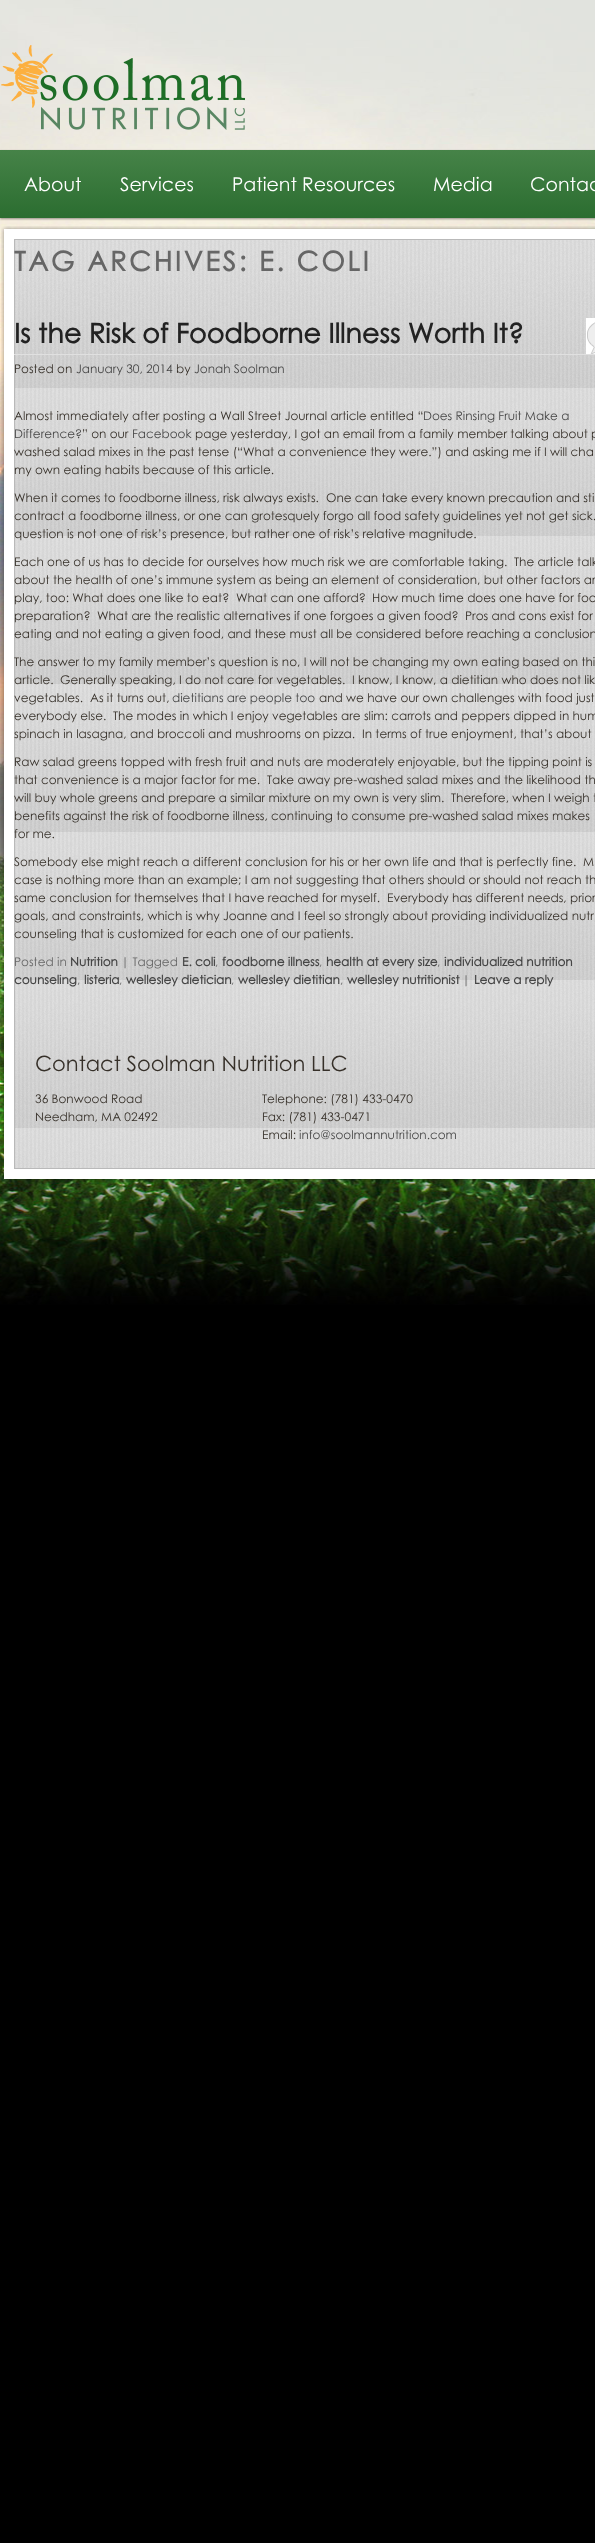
<svg xmlns="http://www.w3.org/2000/svg" width="595" height="2543">
	<defs>
		<linearGradient id="g1" gradientUnits="userSpaceOnUse" x1="469" y1="150" x2="469" y2="218"><stop offset="0" stop-color="#468348" /><stop offset="1" stop-color="#2B6D30" /></linearGradient>
	</defs>
	<rect width="100%" height="100%" fill="#000000" />
	<image x="0" y="0" width="595" height="1305" href="assets/img1.png" />
	<image x="1" y="45" width="244" height="85" href="assets/img2.png" />
	<rect x="0" y="151" width="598" height="68" fill="#000000" fill-opacity="0.4" filter="blur(1px)" />
	<rect x="0" y="150" width="595" height="68" fill="url(#g1)" />
	<g font-family="Century Gothic" font-size="19" fill="#FFFFFF">
		<text x="24" y="191">About</text>
		<text x="120" y="191">Services</text>
		<text x="232" y="191">Patient Resources</text>
		<text x="433" y="191">Media</text>
		<text x="530" y="191">Contac</text>
	</g>
	<image x="1" y="226" width="594" height="13" href="assets/img3.png" />
	<image x="1" y="239" width="13" height="930" href="assets/img4.png" />
	<image x="15" y="240" width="580" height="928" href="assets/img6.png" />
	<rect x="14.5" y="239.5" width="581" height="929" fill="none" stroke="#B9B9B9" />
	<text x="14" y="271" font-family="Century Gothic" font-size="27" font-weight="700" letter-spacing="2.7" fill="#666666">TAG ARCHIVES: E. COLI</text>
	<rect x="14" y="354" width="581" height="1" fill="#E0E0E0" />
	<text x="14" y="343" font-family="Century Gothic" font-size="27" font-weight="700" fill="#222222">Is the Risk of Foodborne Illness Worth It?</text>
	<rect x="587" y="322" width="8" height="32" fill="#EEEEEE" />
	<image x="586" y="318" width="9" height="36" href="assets/img5.png" />
	<text x="14" y="373" font-family="Century Gothic" font-size="12" fill="#363029">Posted on</text>
	<text x="76" y="373" font-family="Century Gothic" font-size="12" fill="#464646">January 30, 2014</text>
	<text x="176" y="373" font-family="Century Gothic" font-size="12" fill="#363029">by</text>
	<text x="194" y="373" font-family="Century Gothic" font-size="12" fill="#464646">Jonah Soolman</text>
	<text x="14" y="420" font-family="Century Gothic" font-size="12" fill="#363029">Almost immediately after posting a Wall Street Journal article entitled “</text>
	<g font-family="Century Gothic" font-size="12" fill="#464646">
		<text x="423" y="420">Does Rinsing Fruit Make a</text>
		<text x="14" y="438">Difference?</text>
	</g>
	<text x="82" y="438" font-family="Century Gothic" font-size="12" fill="#363029">” on our</text>
	<text x="132" y="438" font-family="Century Gothic" font-size="12" fill="#464646">Facebook</text>
	<g font-family="Century Gothic" font-size="12" fill="#363029">
		<text x="195" y="438">page yesterday, I got an email from a family member talking about p</text>
		<text x="14" y="456">washed salad mixes in the past tense (“What a convenience they were.”) and asking me if I will cha</text>
		<text x="14" y="474">my own eating habits because of this article.</text>
		<text x="14" y="502">When it comes to foodborne illness, risk always exists.</text>
		<text x="326" y="502">One can take every known precaution and sti</text>
		<text x="14" y="520">contract a foodborne illness, or one can grotesquely forgo all food safety guidelines yet not get sick.</text>
		<text x="14" y="538">question is not one of risk’s presence, but rather one of risk’s relative magnitude.</text>
		<text x="14" y="566">Each one of us has to decide for ourselves how much risk we are comfortable taking.</text>
		<text x="514" y="566">The article talk</text>
		<text x="14" y="584">about the health of one’s immune system as being an element of consideration, but other factors ar</text>
		<text x="14" y="602">play, too: What does one like to eat?</text>
		<text x="236" y="602">What can one afford?</text>
		<text x="372" y="602">How much time does one have for foo</text>
		<text x="14" y="620">preparation?</text>
		<text x="97" y="620">What are the realistic alternatives if one forgoes a given food?</text>
		<text x="465" y="620">Pros and cons exist for</text>
		<text x="14" y="638">eating and not eating a given food, and these must all be considered before reaching a conclusion</text>
		<text x="14" y="666">The answer to my family member’s question is no, I will not be changing my own eating based on thi</text>
		<text x="14" y="684">article.</text>
		<text x="60" y="684">Generally speaking, I do not care for vegetables.</text>
		<text x="352" y="684">I know, I know, a dietitian who does not lik</text>
		<text x="14" y="702">vegetables.</text>
		<text x="90" y="702">As it turns out,</text>
	</g>
	<text x="172" y="702" font-family="Century Gothic" font-size="12" fill="#464646">dietitians are people too</text>
	<g font-family="Century Gothic" font-size="12" fill="#363029">
		<text x="319" y="702">and we have our own challenges with food just</text>
		<text x="14" y="720">everybody else.</text>
		<text x="113" y="720">The modes in which I enjoy vegetables are slim: carrots and peppers dipped in hum</text>
		<text x="14" y="738">spinach in lasagna, and broccoli and mushrooms on pizza.</text>
		<text x="362" y="738">In terms of true enjoyment, that’s about</text>
		<text x="14" y="766">Raw salad greens topped with fresh fruit and nuts are moderately enjoyable, but the tipping point is</text>
		<text x="14" y="784">that convenience is a major factor for me.</text>
		<text x="267" y="784">Take away pre-washed salad mixes and the likelihood th</text>
		<text x="14" y="802">will buy whole greens and prepare a similar mixture on my own is very slim.</text>
		<text x="451" y="802">Therefore, when I weigh t</text>
		<text x="14" y="820">benefits against the risk of foodborne illness, continuing to consume pre-washed salad mixes makes</text>
		<text x="14" y="838">for me.</text>
		<text x="14" y="866">Somebody else might reach a different conclusion for his or her own life and that is perfectly fine.</text>
		<text x="583" y="866">M</text>
		<text x="14" y="884">case is nothing more than an example; I am not suggesting that others should or should not reach th</text>
		<text x="14" y="902">same conclusion for themselves that I have reached for myself.</text>
		<text x="387" y="902">Everybody has different needs, prior</text>
		<text x="14" y="920">goals, and constraints, which is why Joanne and I feel so strongly about providing individualized nutr</text>
		<text x="14" y="938">counseling that is customized for each one of our patients.</text>
	</g>
	<text x="14" y="966" font-family="Century Gothic" font-size="12" fill="#666666">Posted in</text>
	<text x="70" y="966" font-family="Century Gothic" font-size="12" font-weight="700" fill="#464646">Nutrition</text>
	<text x="121" y="966" font-family="Century Gothic" font-size="12" fill="#666666">| Tagged</text>
	<text x="182" y="966" font-family="Century Gothic" font-size="12" font-weight="700" fill="#464646">E. coli</text>
	<text x="215" y="966" font-family="Century Gothic" font-size="12" fill="#666666">,</text>
	<text x="222" y="966" font-family="Century Gothic" font-size="12" font-weight="700" fill="#464646">foodborne illness</text>
	<text x="319" y="966" font-family="Century Gothic" font-size="12" fill="#666666">,</text>
	<text x="326" y="966" font-family="Century Gothic" font-size="12" font-weight="700" fill="#464646">health at every size</text>
	<text x="437" y="966" font-family="Century Gothic" font-size="12" fill="#666666">,</text>
	<g font-family="Century Gothic" font-size="12" font-weight="700" fill="#464646">
		<text x="444" y="966">individualized nutrition</text>
		<text x="14" y="984">counseling</text>
	</g>
	<text x="77" y="984" font-family="Century Gothic" font-size="12" fill="#666666">,</text>
	<text x="84" y="984" font-family="Century Gothic" font-size="12" font-weight="700" fill="#464646">listeria</text>
	<text x="119" y="984" font-family="Century Gothic" font-size="12" fill="#666666">,</text>
	<text x="126" y="984" font-family="Century Gothic" font-size="12" font-weight="700" fill="#464646">wellesley dietician</text>
	<text x="231" y="984" font-family="Century Gothic" font-size="12" fill="#666666">,</text>
	<text x="238" y="984" font-family="Century Gothic" font-size="12" font-weight="700" fill="#464646">wellesley dietitian</text>
	<text x="340" y="984" font-family="Century Gothic" font-size="12" fill="#666666">,</text>
	<text x="347" y="984" font-family="Century Gothic" font-size="12" font-weight="700" fill="#464646">wellesley nutritionist</text>
	<text x="462" y="984" font-family="Century Gothic" font-size="12" fill="#666666">|</text>
	<text x="474" y="984" font-family="Century Gothic" font-size="12" font-weight="700" fill="#464646">Leave a reply</text>
	<text x="35" y="1071" font-family="Century Gothic" font-size="21" fill="#363029">Contact Soolman Nutrition LLC</text>
	<g font-family="Century Gothic" font-size="12" fill="#363029">
		<text x="35" y="1103">36 Bonwood Road</text>
		<text x="35" y="1121">Needham, MA 02492</text>
		<text x="262" y="1103">Telephone: (781) 433-0470</text>
		<text x="262" y="1121">Fax: (781) 433-0471</text>
		<text x="262" y="1139">Email:</text>
	</g>
	<text x="299" y="1139" font-family="Century Gothic" font-size="12" fill="#464646">info@soolmannutrition.com</text>
	<image x="1" y="1169" width="594" height="13" href="assets/img7.png" />
</svg>
